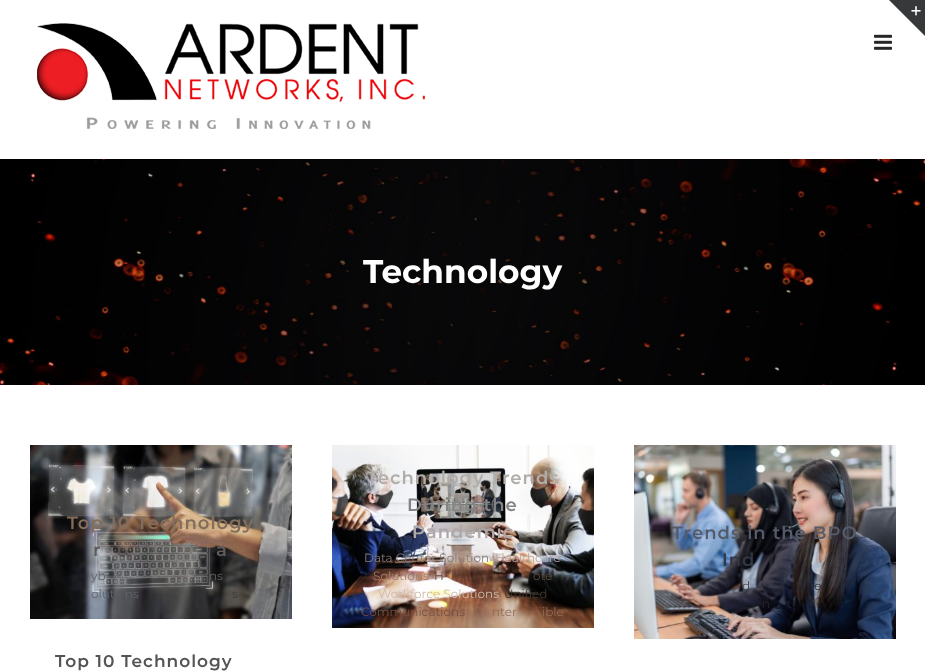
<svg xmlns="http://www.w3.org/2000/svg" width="925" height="671">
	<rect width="100%" height="100%" fill="#FFFFFF" />
	<image x="874" y="34" width="18" height="16" href="assets/img3.png" />
	<path d="M889 0H925V36Z" fill="#363839" />
	<image x="911" y="6" width="10" height="10" href="assets/img1.png" />
	<image x="37" y="23" width="388" height="106" href="assets/img2.png" />
	<image x="0" y="159" width="925" height="226" href="assets/img4.png" />
	<text x="363" y="283" font-family="Montserrat" font-size="32.75" font-weight="700" fill="#FFFFFF">Technology</text>
	<image x="30" y="445" width="262" height="174" href="assets/img5.png" />
	<text x="67" y="529" font-family="Montserrat" font-size="18" font-weight="600" letter-spacing="1" fill="#836E5C">Top 10 Technology</text>
	<g font-family="Montserrat" font-size="18" font-weight="600" letter-spacing="1" fill="#615C5A">
		<text x="93" y="556">r</text>
		<text x="216" y="556">a</text>
	</g>
	<g font-family="Montserrat" font-size="12" fill="#606163">
		<text x="91" y="580">yb</text>
		<text x="209" y="580">ns</text>
	</g>
	<g font-family="Montserrat" font-size="12" fill="#5F636B">
		<text x="91" y="598">olut</text>
		<text x="125" y="598">ns</text>
	</g>
	<text x="232" y="598" font-family="Montserrat" font-size="12" fill="#3B3B3A">s</text>
	<text x="55" y="667" font-family="Montserrat" font-size="17" font-weight="600" letter-spacing="1" fill="#545454">Top 10 Technology</text>
	<image x="332" y="445" width="262" height="183" href="assets/img6.png" />
	<text x="367" y="484" font-family="Montserrat" font-size="18" font-weight="600" letter-spacing="1" fill="#B3ADAA">Technology Trends</text>
	<text x="407" y="511" font-family="Montserrat" font-size="18" font-weight="600" letter-spacing="1" fill="#848484">During the</text>
	<text x="412" y="538" font-family="Montserrat" font-size="18" font-weight="600" letter-spacing="1" fill="#AFA7A8">Pandemic</text>
	<text x="364" y="562" font-family="Montserrat" font-size="12" fill="#847C7D">Data Center Solution</text>
	<text x="495" y="562" font-family="Montserrat" font-size="12" fill="#B6A7A3">Healthcare</text>
	<text x="373" y="580" font-family="Montserrat" font-size="12" fill="#A17C6C">Solutions</text>
	<g font-family="Montserrat" font-size="12" fill="#5D473E">
		<text x="434" y="580">H</text>
		<text x="533" y="580">ote</text>
	</g>
	<text x="378" y="598" font-family="Montserrat" font-size="12" fill="#D1BAA9">Workforce Solutions</text>
	<text x="504" y="598" font-family="Montserrat" font-size="12" fill="#423831">Unified</text>
	<text x="361" y="616" font-family="Montserrat" font-size="12" fill="#735145">Communications</text>
	<g font-family="Montserrat" font-size="12" fill="#946D56">
		<text x="492" y="616">nter</text>
		<text x="542" y="616">ible</text>
	</g>
	<image x="634" y="445" width="262" height="194" href="assets/img7.png" />
	<text x="672" y="539" font-family="Montserrat" font-size="18" font-weight="600" letter-spacing="1" fill="#565B6A">Trends in the BPO</text>
	<text x="722" y="566" font-family="Montserrat" font-size="18" font-weight="600" letter-spacing="1" fill="#333847">Ind</text>
	<text x="742" y="590" font-family="Montserrat" font-size="12" fill="#3F3F4B">d</text>
	<text x="811" y="590" font-family="Montserrat" font-size="12" fill="#34333A">ie</text>
	<g font-family="Montserrat" font-size="12" fill="#25242E">
		<text x="762" y="608">n</text>
		<text x="787" y="608">t</text>
	</g>
</svg>
